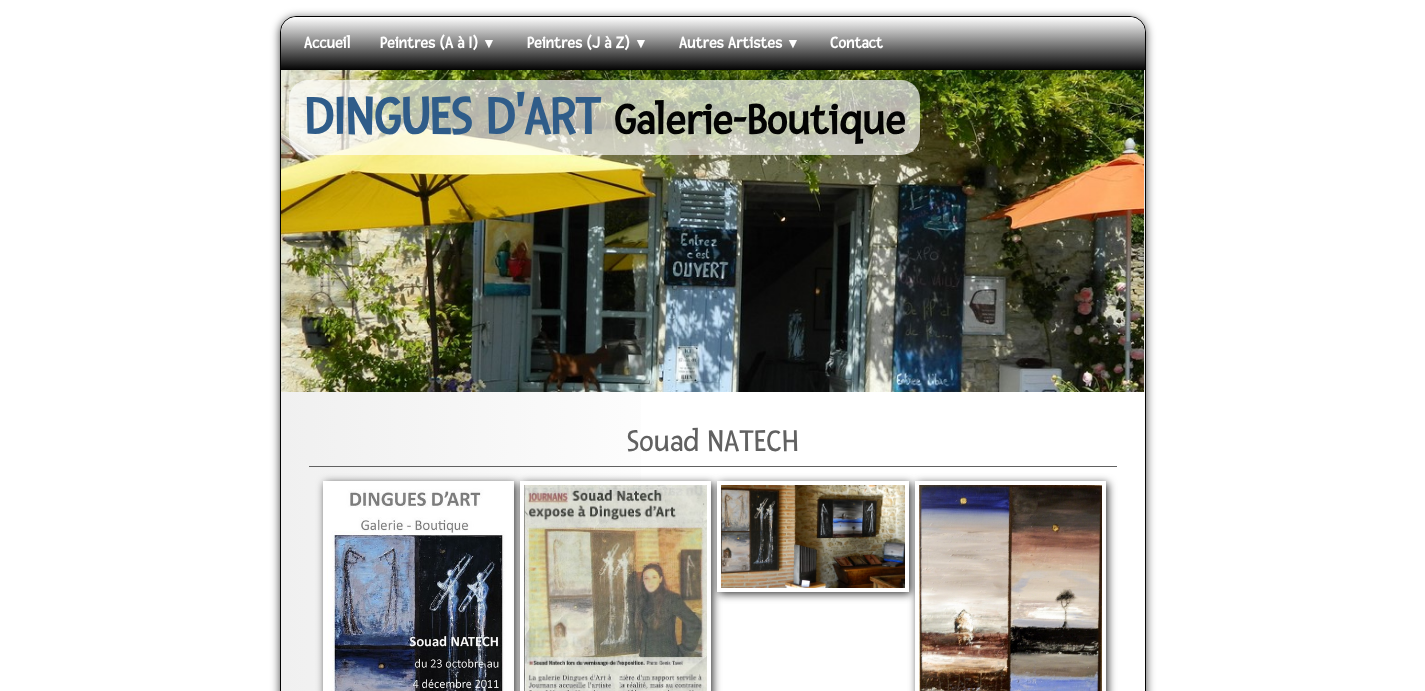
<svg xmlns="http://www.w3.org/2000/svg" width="1425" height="691">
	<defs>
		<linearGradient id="g1" gradientUnits="userSpaceOnUse" x1="713" y1="17" x2="713" y2="70"><stop offset="0" stop-color="#FFFFFF" /><stop offset="1" stop-color="#030303" /></linearGradient>
		<linearGradient id="g2" gradientUnits="userSpaceOnUse" x1="281" y1="662" x2="1145" y2="662"><stop offset="0" stop-color="#F0F0F0" /><stop offset="0.5" stop-color="#FFFFFF" /><stop offset="1" stop-color="#FFFFFF" /></linearGradient>
	</defs>
	<rect width="100%" height="100%" fill="#FFFFFF" />
	<rect x="280" y="18" width="866" height="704" rx="16" fill="#030303" fill-opacity="0.75" filter="blur(5px)" />
	<rect x="280.5" y="16.5" width="865" height="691" rx="15.5" fill="#FFFFFF" stroke="#030303" />
	<path d="M307 17H1119C1133.5 17 1145 28.5 1145 43V392H281V43C281 28.5 292.5 17 307 17Z" fill="#EBEBEB" />
	<path d="M297 17H1129C1138 17 1145 24 1145 33V70H281V33C281 24 288 17 297 17Z" fill="url(#g1)" />
	<g font-family="Fresca" font-size="17" font-weight="700" fill="#FFFFFF">
		<text x="304" y="48">Accueil</text>
		<text x="380" y="48">Peintres (A à I)</text>
	</g>
	<text x="482" y="48" font-family="Liberation Serif" font-size="14" font-weight="700" fill="#FFFFFF">▼</text>
	<text x="527" y="48" font-family="Fresca" font-size="17" font-weight="700" fill="#FFFFFF">Peintres (J à Z)</text>
	<text x="634" y="48" font-family="Liberation Serif" font-size="14" font-weight="700" fill="#FFFFFF">▼</text>
	<text x="679" y="48" font-family="Fresca" font-size="17" font-weight="700" fill="#FFFFFF">Autres Artistes</text>
	<text x="786" y="48" font-family="Liberation Serif" font-size="14" font-weight="700" fill="#FFFFFF">▼</text>
	<text x="830" y="48" font-family="Fresca" font-size="17" font-weight="700" fill="#FFFFFF">Contact</text>
	<image x="281" y="70" width="863" height="322" href="assets/img1.png" />
	<rect x="289" y="80" width="631" height="75" rx="19" fill="#FFFFFF" fill-opacity="0.67" />
	<text x="304" y="134" font-family="Fresca" font-size="55" font-weight="700" fill="#2F5C89">DINGUES D'ART</text>
	<text x="614" y="134" font-family="Fresca" font-size="45" font-weight="700" fill="#030303">Galerie-Boutique</text>
	<rect x="281" y="392" width="360" height="299" fill="url(#g2)" />
	<rect x="309" y="466" width="808" height="1" fill="#616161" />
	<text x="627" y="451" font-family="Fresca" font-size="32" fill="#616161">Souad NATECH</text>
	<rect x="325" y="483" width="191" height="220" fill="#363636" filter="blur(4px)" />
	<rect x="325" y="483" width="187" height="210" fill="none" stroke="#FFFFFF" stroke-width="4" />
	<image x="327" y="485" width="183" height="206" href="assets/img2.png" />
	<rect x="522" y="483" width="191" height="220" fill="#363636" filter="blur(4px)" />
	<rect x="522" y="483" width="187" height="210" fill="none" stroke="#FFFFFF" stroke-width="4" />
	<image x="524" y="485" width="183" height="206" href="assets/img3.png" />
	<rect x="719" y="483" width="192" height="111" fill="#363636" filter="blur(4px)" />
	<rect x="719" y="483" width="188" height="107" fill="none" stroke="#FFFFFF" stroke-width="4" />
	<image x="721" y="485" width="184" height="103" href="assets/img4.png" />
	<rect x="917" y="483" width="191" height="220" fill="#363636" filter="blur(4px)" />
	<rect x="917" y="483" width="187" height="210" fill="none" stroke="#FFFFFF" stroke-width="4" />
	<image x="919" y="485" width="183" height="206" href="assets/img5.png" />
</svg>
